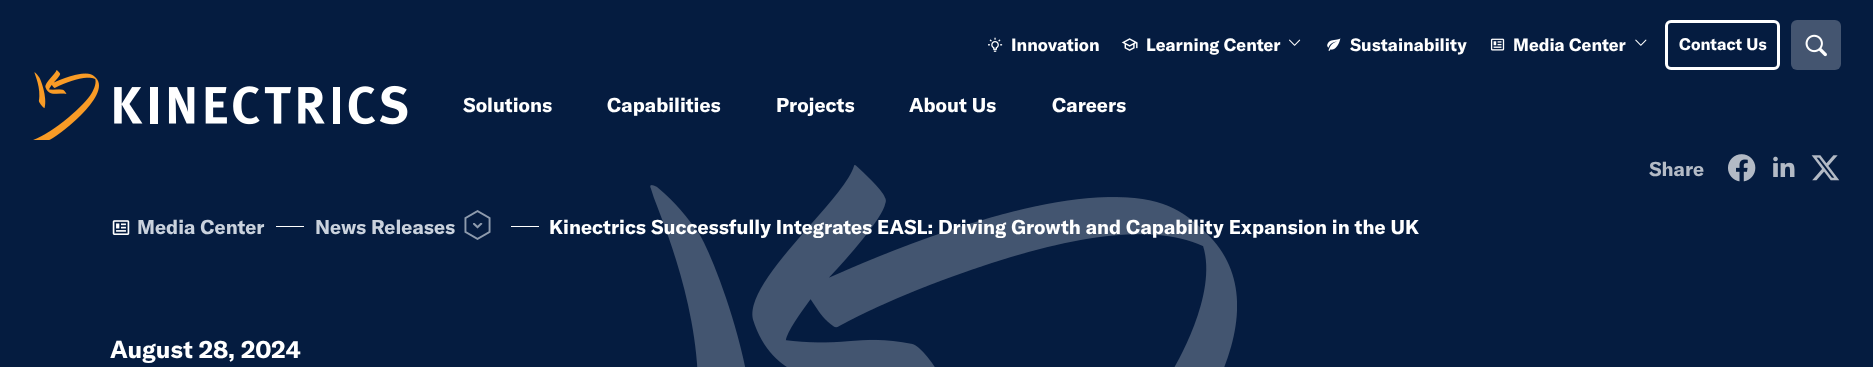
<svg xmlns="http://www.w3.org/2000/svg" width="1873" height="367">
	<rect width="100%" height="100%" fill="#051C40" />
	<image x="988" y="37" width="15" height="15" href="assets/img1.png" />
	<text x="1011" y="51" font-family="GT America" font-size="17.5" font-weight="700" fill="#FFFFFF">Innovation</text>
	<image x="1121" y="38" width="17" height="13" href="assets/img2.png" />
	<text x="1146" y="51" font-family="GT America" font-size="17.5" font-weight="700" fill="#FFFFFF">Learning Center</text>
	<image x="1289" y="39" width="12" height="7" href="assets/img3.png" />
	<image x="1327" y="38" width="14" height="13" href="assets/img4.png" />
	<text x="1350" y="51" font-family="GT America" font-size="17.5" font-weight="700" fill="#FFFFFF">Sustainability</text>
	<image x="1490" y="38" width="15" height="13" href="assets/img5.png" />
	<text x="1513" y="51" font-family="GT America" font-size="17.5" font-weight="700" fill="#FFFFFF">Media Center</text>
	<image x="1635" y="39" width="12" height="7" href="assets/img6.png" />
	<rect x="1666.5" y="21.5" width="112" height="47" rx="4.5" fill="none" stroke="#FFFFFF" stroke-width="3" />
	<text x="1679" y="50" font-family="GT America" font-size="16.5" font-weight="700" fill="#FFFFFF">Contact Us</text>
	<rect x="1791" y="20" width="50" height="50" rx="6" fill="#445570" />
	<image x="1805" y="34" width="22" height="23" href="assets/img7.png" />
	<image x="33" y="70" width="375" height="70" href="assets/img8.png" />
	<g font-family="GT America" font-size="19.8" font-weight="700" fill="#FFFFFF">
		<text x="463" y="112">Solutions</text>
		<text x="607" y="112">Capabilities</text>
		<text x="776" y="112">Projects</text>
		<text x="909" y="112">About Us</text>
		<text x="1052" y="112">Careers</text>
	</g>
	<text x="1649" y="176" font-family="GT America" font-size="19.8" font-weight="700" fill="#B4BBC6">Share</text>
	<image x="1728" y="154" width="28" height="28" href="assets/img9.png" />
	<image x="1773" y="156" width="22" height="21" href="assets/img10.png" />
	<image x="1811" y="155" width="29" height="26" href="assets/img11.png" />
	<image x="112" y="220" width="18" height="15" href="assets/img12.png" />
	<text x="137" y="234" font-family="GT America" font-size="19.8" font-weight="700" fill="#CAD2DD">Media Center</text>
	<rect x="276" y="226" width="28" height="1" fill="#FFFFFF" />
	<text x="315" y="234" font-family="GT America" font-size="19.8" font-weight="700" fill="#CAD2DD">News Releases</text>
	<image x="464" y="210" width="27" height="30" href="assets/img13.png" />
	<rect x="511" y="226" width="28" height="1" fill="#FFFFFF" />
	<image x="650" y="165" width="587" height="202" href="assets/img14.png" />
	<text x="549" y="234" font-family="GT America" font-size="19.8" font-weight="700" fill="#FFFFFF">Kinectrics Successfully Integrates EASL: Driving Growth and Capability Expansion in the UK</text>
	<text x="110" y="358" font-family="GT America" font-size="24.25" font-weight="700" fill="#FFFFFF">August 28, 2024</text>
</svg>
